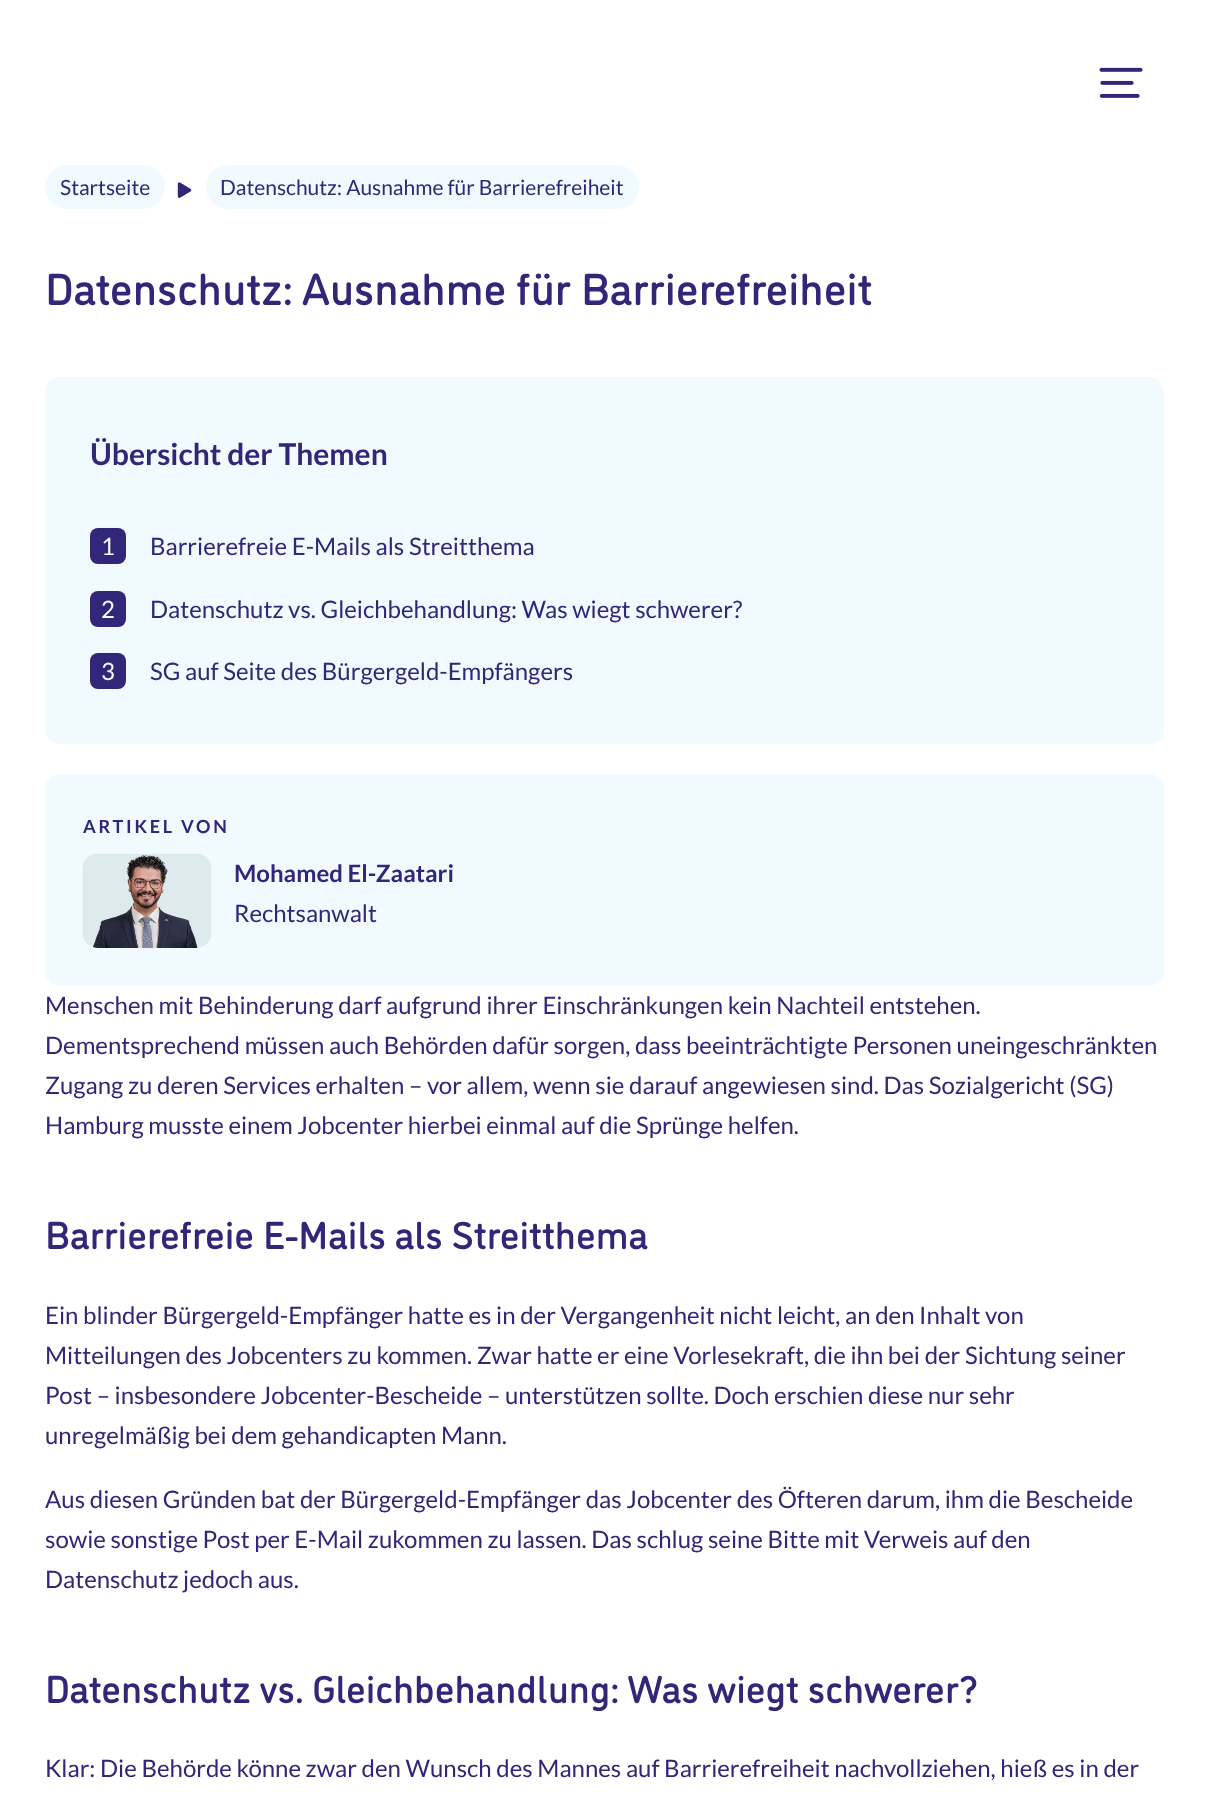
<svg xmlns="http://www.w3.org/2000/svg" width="1208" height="1809">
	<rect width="100%" height="100%" fill="#FFFFFF" />
	<image x="1099" y="67" width="44" height="31" href="assets/img1.png" />
	<rect x="45" y="165" width="120" height="44" rx="22" fill="#F0FAFF" />
	<text x="60" y="195" font-family="Lato" font-size="21" fill="#312678">Startseite</text>
	<image x="177" y="182" width="15" height="16" href="assets/img2.png" />
	<rect x="206" y="165" width="433" height="44" rx="22" fill="#F0FAFF" />
	<text x="220" y="195" font-family="Lato" font-size="21" fill="#312678">Datenschutz: Ausnahme für Barrierefreiheit</text>
	<text x="45" y="305" font-family="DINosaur" font-size="45" font-weight="500" fill="#312678">Datenschutz: Ausnahme für Barrierefreiheit</text>
	<rect x="45" y="377" width="1119" height="367" rx="15" fill="#F0FAFF" />
	<text x="90" y="465" font-family="Lato" font-size="30" font-weight="700" fill="#312678">Übersicht der Themen</text>
	<rect x="90" y="528" width="36" height="36" rx="8" fill="#312678" />
	<text x="101" y="555" font-family="Lato" font-size="24" fill="#F0FAFF">1</text>
	<text x="150" y="555" font-family="Lato" font-size="24" fill="#312678">Barrierefreie E-Mails als Streitthema</text>
	<rect x="90" y="591" width="36" height="36" rx="8" fill="#312678" />
	<text x="101" y="618" font-family="Lato" font-size="24" fill="#F0FAFF">2</text>
	<text x="150" y="618" font-family="Lato" font-size="24" fill="#312678">Datenschutz vs. Gleichbehandlung: Was wiegt schwerer?</text>
	<rect x="90" y="653" width="36" height="36" rx="8" fill="#312678" />
	<text x="101" y="680" font-family="Lato" font-size="24" fill="#F0FAFF">3</text>
	<text x="150" y="680" font-family="Lato" font-size="24" fill="#312678">SG auf Seite des Bürgergeld-Empfängers</text>
	<rect x="45" y="774" width="1119" height="212" rx="15" fill="#F0FAFF" />
	<text x="83" y="833" font-family="Lato" font-size="18" font-weight="700" letter-spacing="2.75" fill="#312678">ARTIKEL VON</text>
	<image x="82" y="853" width="130" height="95" href="assets/img3.png" />
	<text x="234" y="882" font-family="Lato" font-size="24" font-weight="700" fill="#312678">Mohamed El-Zaatari</text>
	<g font-family="Lato" font-size="24" fill="#312678">
		<text x="234" y="922">Rechtsanwalt</text>
		<text x="45" y="1014">Menschen mit Behinderung darf aufgrund ihrer Einschränkungen kein Nachteil entstehen.</text>
		<text x="45" y="1054">Dementsprechend müssen auch Behörden dafür sorgen, dass beeinträchtigte Personen uneingeschränkten</text>
		<text x="45" y="1094">Zugang zu deren Services erhalten – vor allem, wenn sie darauf angewiesen sind. Das Sozialgericht (SG)</text>
		<text x="45" y="1134">Hamburg musste einem Jobcenter hierbei einmal auf die Sprünge helfen.</text>
	</g>
	<text x="45" y="1249" font-family="DINosaur" font-size="39" font-weight="500" fill="#312678">Barrierefreie E-Mails als Streitthema</text>
	<g font-family="Lato" font-size="24" fill="#312678">
		<text x="45" y="1324">Ein blinder Bürgergeld-Empfänger hatte es in der Vergangenheit nicht leicht, an den Inhalt von</text>
		<text x="45" y="1364">Mitteilungen des Jobcenters zu kommen. Zwar hatte er eine Vorlesekraft, die ihn bei der Sichtung seiner</text>
		<text x="45" y="1404">Post – insbesondere Jobcenter-Bescheide – unterstützen sollte. Doch erschien diese nur sehr</text>
		<text x="45" y="1444">unregelmäßig bei dem gehandicapten Mann.</text>
		<text x="45" y="1508">Aus diesen Gründen bat der Bürgergeld-Empfänger das Jobcenter des Öfteren darum, ihm die Bescheide</text>
		<text x="45" y="1548">sowie sonstige Post per E-Mail zukommen zu lassen. Das schlug seine Bitte mit Verweis auf den</text>
		<text x="45" y="1588">Datenschutz jedoch aus.</text>
	</g>
	<text x="45" y="1703" font-family="DINosaur" font-size="39" font-weight="500" fill="#312678">Datenschutz vs. Gleichbehandlung: Was wiegt schwerer?</text>
	<text x="45" y="1777" font-family="Lato" font-size="24" fill="#312678">Klar: Die Behörde könne zwar den Wunsch des Mannes auf Barrierefreiheit nachvollziehen, hieß es in der</text>
</svg>
